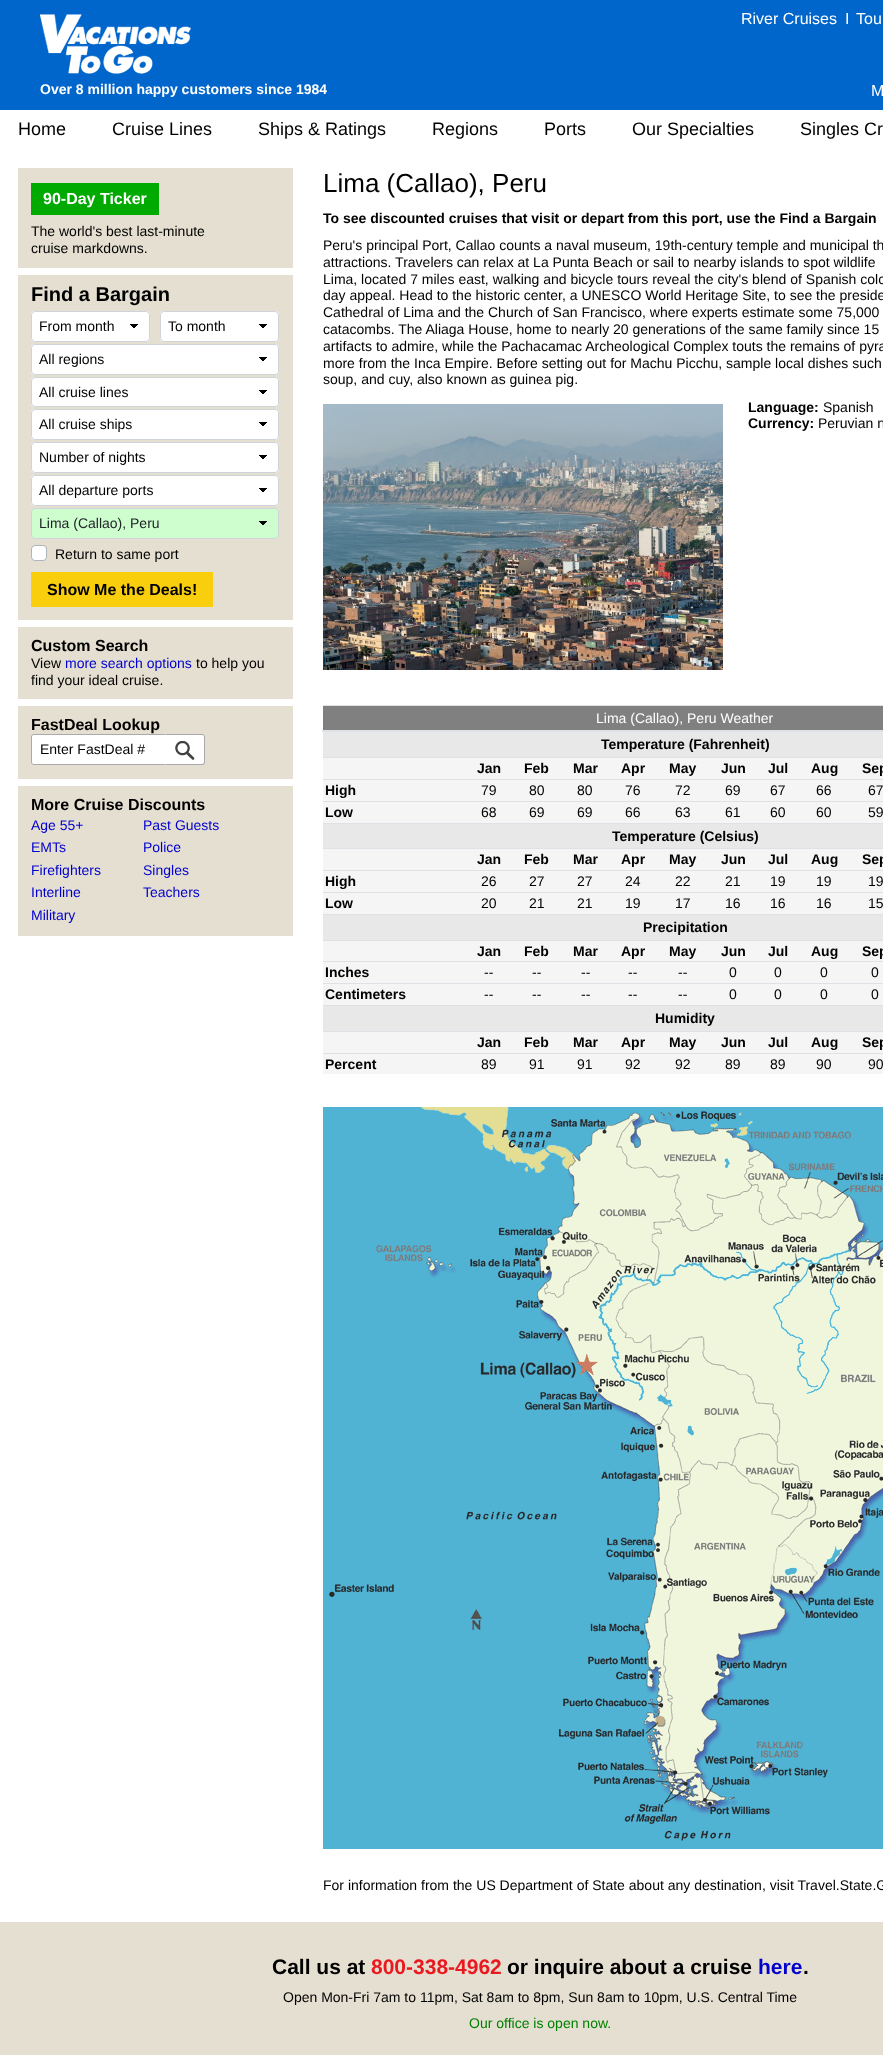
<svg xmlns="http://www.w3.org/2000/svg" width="883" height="2055">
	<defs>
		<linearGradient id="g1" gradientUnits="userSpaceOnUse" x1="134" y1="324" x2="139" y2="329"><stop offset="0.4" stop-color="#000000" /><stop offset="0.5" stop-color="#FFFFFF" /></linearGradient>
		<linearGradient id="g2" gradientUnits="userSpaceOnUse" x1="129" y1="329" x2="134" y2="324"><stop offset="0.5" stop-color="#FFFFFF" /><stop offset="0.6" stop-color="#000000" /></linearGradient>
		<linearGradient id="g3" gradientUnits="userSpaceOnUse" x1="263" y1="324" x2="268" y2="329"><stop offset="0.4" stop-color="#000000" /><stop offset="0.5" stop-color="#FFFFFF" /></linearGradient>
		<linearGradient id="g4" gradientUnits="userSpaceOnUse" x1="258" y1="329" x2="263" y2="324"><stop offset="0.5" stop-color="#FFFFFF" /><stop offset="0.6" stop-color="#000000" /></linearGradient>
		<linearGradient id="g5" gradientUnits="userSpaceOnUse" x1="263" y1="357" x2="268" y2="362"><stop offset="0.4" stop-color="#000000" /><stop offset="0.5" stop-color="#FFFFFF" /></linearGradient>
		<linearGradient id="g6" gradientUnits="userSpaceOnUse" x1="258" y1="362" x2="263" y2="357"><stop offset="0.5" stop-color="#FFFFFF" /><stop offset="0.6" stop-color="#000000" /></linearGradient>
		<linearGradient id="g7" gradientUnits="userSpaceOnUse" x1="263" y1="390" x2="268" y2="395"><stop offset="0.4" stop-color="#000000" /><stop offset="0.5" stop-color="#FFFFFF" /></linearGradient>
		<linearGradient id="g8" gradientUnits="userSpaceOnUse" x1="258" y1="395" x2="263" y2="390"><stop offset="0.5" stop-color="#FFFFFF" /><stop offset="0.6" stop-color="#000000" /></linearGradient>
		<linearGradient id="g9" gradientUnits="userSpaceOnUse" x1="263" y1="422" x2="268" y2="427"><stop offset="0.4" stop-color="#000000" /><stop offset="0.5" stop-color="#FFFFFF" /></linearGradient>
		<linearGradient id="g10" gradientUnits="userSpaceOnUse" x1="258" y1="427" x2="263" y2="422"><stop offset="0.5" stop-color="#FFFFFF" /><stop offset="0.6" stop-color="#000000" /></linearGradient>
		<linearGradient id="g11" gradientUnits="userSpaceOnUse" x1="263" y1="455" x2="268" y2="460"><stop offset="0.4" stop-color="#000000" /><stop offset="0.5" stop-color="#FFFFFF" /></linearGradient>
		<linearGradient id="g12" gradientUnits="userSpaceOnUse" x1="258" y1="460" x2="263" y2="455"><stop offset="0.5" stop-color="#FFFFFF" /><stop offset="0.6" stop-color="#000000" /></linearGradient>
		<linearGradient id="g13" gradientUnits="userSpaceOnUse" x1="263" y1="488" x2="268" y2="493"><stop offset="0.4" stop-color="#000000" /><stop offset="0.5" stop-color="#FFFFFF" /></linearGradient>
		<linearGradient id="g14" gradientUnits="userSpaceOnUse" x1="258" y1="493" x2="263" y2="488"><stop offset="0.5" stop-color="#FFFFFF" /><stop offset="0.6" stop-color="#000000" /></linearGradient>
		<linearGradient id="g15" gradientUnits="userSpaceOnUse" x1="263" y1="521" x2="268" y2="526"><stop offset="0.4" stop-color="#000000" /><stop offset="0.5" stop-color="#CEFDCE" /></linearGradient>
		<linearGradient id="g16" gradientUnits="userSpaceOnUse" x1="258" y1="526" x2="263" y2="521"><stop offset="0.5" stop-color="#CEFDCE" /><stop offset="0.6" stop-color="#000000" /></linearGradient>
	</defs>
	<rect width="100%" height="100%" fill="#FFFFFF" />
	<rect x="0" y="0" width="883" height="110" fill="#0066CB" />
	<image x="40" y="14" width="151" height="60" href="assets/img1.png" />
	<text x="40" y="94" font-family="Liberation Sans" font-size="14" font-weight="700" fill="#FFFFFF">Over 8 million happy customers since 1984</text>
	<g font-family="Liberation Sans" font-size="16" fill="#FFFFFF">
		<text x="741" y="24">River Cruises</text>
		<text x="845" y="24">I</text>
		<text x="856" y="24">Tou</text>
		<text x="871" y="96">M</text>
	</g>
	<g font-family="Liberation Sans" font-size="18" fill="#000000">
		<text x="18" y="135">Home</text>
		<text x="112" y="135">Cruise Lines</text>
		<text x="258" y="135">Ships &amp; Ratings</text>
		<text x="432" y="135">Regions</text>
		<text x="544" y="135">Ports</text>
		<text x="632" y="135">Our Specialties</text>
		<text x="800" y="135">Singles Cr</text>
	</g>
	<rect x="18" y="168" width="275" height="100" fill="#E5DFD1" />
	<rect x="31" y="183" width="128" height="32" fill="#00AA00" />
	<text x="43" y="204" font-family="Liberation Sans" font-size="16" font-weight="700" fill="#FFFFFF">90-Day Ticker</text>
	<g font-family="Liberation Sans" font-size="14" fill="#000000">
		<text x="31" y="236">The world's best last-minute</text>
		<text x="31" y="253">cruise markdowns.</text>
	</g>
	<rect x="18" y="275" width="275" height="345" fill="#E5DFD1" />
	<text x="31" y="301" font-family="Liberation Sans" font-size="20" font-weight="700" fill="#000000">Find a Bargain</text>
	<rect x="31" y="311" width="119" height="31" rx="4" fill="#FFFFFF" />
	<rect x="134" y="324" width="5" height="4" fill="url(#g1)" />
	<rect x="129" y="324" width="5" height="4" fill="url(#g2)" />
	<rect x="31.5" y="311.5" width="118" height="30" rx="3.5" fill="none" stroke="#CED4DA" />
	<text x="39" y="331" font-family="Liberation Sans" font-size="14" fill="#000000">From month</text>
	<rect x="160" y="311" width="119" height="31" rx="4" fill="#FFFFFF" />
	<rect x="263" y="324" width="5" height="4" fill="url(#g3)" />
	<rect x="258" y="324" width="5" height="4" fill="url(#g4)" />
	<rect x="160.5" y="311.5" width="118" height="30" rx="3.5" fill="none" stroke="#CED4DA" />
	<text x="168" y="331" font-family="Liberation Sans" font-size="14" fill="#000000">To month</text>
	<rect x="31" y="344" width="248" height="31" rx="4" fill="#FFFFFF" />
	<rect x="263" y="357" width="5" height="4" fill="url(#g5)" />
	<rect x="258" y="357" width="5" height="4" fill="url(#g6)" />
	<rect x="31.5" y="344.5" width="247" height="30" rx="3.5" fill="none" stroke="#CED4DA" />
	<text x="39" y="364" font-family="Liberation Sans" font-size="14" fill="#000000">All regions</text>
	<rect x="31" y="377" width="248" height="30" rx="4" fill="#FFFFFF" />
	<rect x="263" y="390" width="5" height="4" fill="url(#g7)" />
	<rect x="258" y="390" width="5" height="4" fill="url(#g8)" />
	<rect x="31.5" y="377.5" width="247" height="29" rx="3.5" fill="none" stroke="#CED4DA" />
	<text x="39" y="397" font-family="Liberation Sans" font-size="14" fill="#000000">All cruise lines</text>
	<rect x="31" y="409" width="248" height="31" rx="4" fill="#FFFFFF" />
	<rect x="263" y="422" width="5" height="4" fill="url(#g9)" />
	<rect x="258" y="422" width="5" height="4" fill="url(#g10)" />
	<rect x="31.5" y="409.5" width="247" height="30" rx="3.5" fill="none" stroke="#CED4DA" />
	<text x="39" y="429" font-family="Liberation Sans" font-size="14" fill="#000000">All cruise ships</text>
	<rect x="31" y="442" width="248" height="31" rx="4" fill="#FFFFFF" />
	<rect x="263" y="455" width="5" height="4" fill="url(#g11)" />
	<rect x="258" y="455" width="5" height="4" fill="url(#g12)" />
	<rect x="31.5" y="442.5" width="247" height="30" rx="3.5" fill="none" stroke="#CED4DA" />
	<text x="39" y="462" font-family="Liberation Sans" font-size="14" fill="#000000">Number of nights</text>
	<rect x="31" y="475" width="248" height="31" rx="4" fill="#FFFFFF" />
	<rect x="263" y="488" width="5" height="4" fill="url(#g13)" />
	<rect x="258" y="488" width="5" height="4" fill="url(#g14)" />
	<rect x="31.5" y="475.5" width="247" height="30" rx="3.5" fill="none" stroke="#CED4DA" />
	<text x="39" y="495" font-family="Liberation Sans" font-size="14" fill="#000000">All departure ports</text>
	<rect x="31" y="508" width="248" height="31" rx="4" fill="#CEFDCE" />
	<rect x="263" y="521" width="5" height="4" fill="url(#g15)" />
	<rect x="258" y="521" width="5" height="4" fill="url(#g16)" />
	<rect x="31.5" y="508.5" width="247" height="30" rx="3.5" fill="none" stroke="#CED4DA" />
	<text x="39" y="528" font-family="Liberation Sans" font-size="14" fill="#212529">Lima (Callao), Peru</text>
	<rect x="31.5" y="545.5" width="15" height="15" rx="3.5" fill="#FFFFFF" stroke="#ADB5BD" />
	<text x="55" y="559" font-family="Liberation Sans" font-size="14" fill="#000000">Return to same port</text>
	<rect x="31" y="572" width="182" height="35" fill="#F9CE0C" />
	<text x="47" y="595" font-family="Liberation Sans" font-size="16" font-weight="700" fill="#000000">Show Me the Deals!</text>
	<rect x="18" y="627" width="275" height="72" fill="#E5DFD1" />
	<text x="31" y="651" font-family="Liberation Sans" font-size="16" font-weight="700" fill="#000000">Custom Search</text>
	<text x="31" y="668" font-family="Liberation Sans" font-size="14" fill="#000000">View</text>
	<text x="65" y="668" font-family="Liberation Sans" font-size="14" fill="#0000CD">more search options</text>
	<g font-family="Liberation Sans" font-size="14" fill="#000000">
		<text x="196" y="668">to help you</text>
		<text x="31" y="685">find your ideal cruise.</text>
	</g>
	<rect x="18" y="706" width="275" height="73" fill="#E5DFD1" />
	<text x="31" y="730" font-family="Liberation Sans" font-size="16" font-weight="700" fill="#000000">FastDeal Lookup</text>
	<path d="M34 734.5H165.5V764.5H34C32.5 764.5 31.5 763.5 31.5 762V737C31.5 735.5 32.5 734.5 34 734.5Z" fill="#FFFFFF" stroke="#AAAAAA" />
	<text x="40" y="754" font-family="Liberation Sans" font-size="14" fill="#000000">Enter FastDeal #</text>
	<path d="M165 734H202C203.5 734 205 735.5 205 737V762C205 763.5 203.5 765 202 765H165Z" fill="#FFFFFF" />
	<path d="M165 734L166 735H202L203.5 735.5L204 735C204 734 203 734 202 734Z" fill="#AAAAAA" />
	<path d="M205 762V737C205 736 205 735 204 735L203.5 735.5L204 737V762L203.5 763.5L204 764C205 764 205 763 205 762Z" fill="#AAAAAA" />
	<path d="M202 765C203 765 204 765 204 764L203.5 763.5L202 764H166L165 765Z" fill="#AAAAAA" />
	<image x="175" y="741" width="20" height="19" href="assets/img2.png" />
	<rect x="18" y="786" width="275" height="150" fill="#E5DFD1" />
	<text x="31" y="810" font-family="Liberation Sans" font-size="16" font-weight="700" fill="#000000">More Cruise Discounts</text>
	<g font-family="Liberation Sans" font-size="14" fill="#0000CD">
		<text x="31" y="830">Age 55+</text>
		<text x="31" y="852">EMTs</text>
		<text x="31" y="875">Firefighters</text>
		<text x="31" y="897">Interline</text>
		<text x="31" y="920">Military</text>
		<text x="143" y="830">Past Guests</text>
		<text x="143" y="852">Police</text>
		<text x="143" y="875">Singles</text>
		<text x="143" y="897">Teachers</text>
	</g>
	<text x="323" y="192" font-family="Liberation Sans" font-size="26" fill="#000000">Lima (Callao), Peru</text>
	<text x="323" y="223" font-family="Liberation Sans" font-size="14" font-weight="700" fill="#000000">To see discounted cruises that visit or depart from this port, use the Find a Bargain</text>
	<g font-family="Liberation Sans" font-size="14" fill="#000000">
		<text x="323" y="250">Peru's principal Port, Callao counts a naval museum, 19th-century temple and municipal th</text>
		<text x="323" y="267">attractions. Travelers can relax at La Punta Beach or sail to nearby islands to spot wildlife</text>
		<text x="323" y="284">Lima, located 7 miles east, walking and bicycle tours reveal the city's blend of Spanish colo</text>
		<text x="323" y="300">day appeal. Head to the historic center, a UNESCO World Heritage Site, to see the preside</text>
		<text x="323" y="317">Cathedral of Lima and the Church of San Francisco, where experts estimate some 75,000</text>
		<text x="323" y="334">catacombs. The Aliaga House, home to nearly 20 generations of the same family since 15</text>
		<text x="323" y="351">artifacts to admire, while the Pachacamac Archeological Complex touts the remains of pyra</text>
		<text x="323" y="368">more from the Inca Empire. Before setting out for Machu Picchu, sample local dishes such</text>
		<text x="323" y="384">soup, and cuy, also known as guinea pig.</text>
	</g>
	<image x="323" y="404" width="400" height="266" href="assets/img3.png" />
	<text x="748" y="412" font-family="Liberation Sans" font-size="14" font-weight="700" fill="#000000">Language:</text>
	<text x="823" y="412" font-family="Liberation Sans" font-size="14" fill="#000000">Spanish</text>
	<text x="748" y="428" font-family="Liberation Sans" font-size="14" font-weight="700" fill="#000000">Currency:</text>
	<text x="818" y="428" font-family="Liberation Sans" font-size="14" fill="#000000">Peruvian n</text>
	<rect x="323" y="706" width="560" height="24" fill="#808080" />
	<rect x="323" y="705" width="560" height="1" fill="#DEE2E6" />
	<rect x="322" y="730" width="561" height="2" fill="#DEE2E6" />
	<text x="596" y="723" font-family="Liberation Sans" font-size="14" fill="#FFFFFF">Lima (Callao), Peru Weather</text>
	<rect x="323" y="732" width="560" height="25" fill="#E8E8E8" />
	<text x="601" y="749" font-family="Liberation Sans" font-size="14" font-weight="700" fill="#000000">Temperature (Fahrenheit)</text>
	<rect x="323" y="758" width="560" height="21" fill="#F5F5F5" />
	<g font-family="Liberation Sans" font-size="14" font-weight="700" fill="#000000">
		<text x="477" y="773">Jan</text>
		<text x="524" y="773">Feb</text>
		<text x="573" y="773">Mar</text>
		<text x="621" y="773">Apr</text>
		<text x="669" y="773">May</text>
		<text x="721" y="773">Jun</text>
		<text x="768" y="773">Jul</text>
		<text x="811" y="773">Aug</text>
	</g>
	<rect x="323" y="757" width="560" height="1" fill="#DEE2E6" />
	<text x="862" y="773" font-family="Liberation Sans" font-size="14" font-weight="700" fill="#000000">Sep</text>
	<rect x="323" y="780" width="560" height="21" fill="#F5F5F5" />
	<text x="325" y="795" font-family="Liberation Sans" font-size="14" font-weight="700" fill="#000000">High</text>
	<g font-family="Liberation Sans" font-size="14" fill="#000000">
		<text x="481" y="795">79</text>
		<text x="529" y="795">80</text>
		<text x="577" y="795">80</text>
		<text x="625" y="795">76</text>
		<text x="675" y="795">72</text>
		<text x="725" y="795">69</text>
		<text x="770" y="795">67</text>
		<text x="816" y="795">66</text>
	</g>
	<rect x="323" y="779" width="560" height="1" fill="#DEE2E6" />
	<text x="868" y="795" font-family="Liberation Sans" font-size="14" fill="#000000">67</text>
	<rect x="323" y="802" width="560" height="21" fill="#F5F5F5" />
	<text x="325" y="817" font-family="Liberation Sans" font-size="14" font-weight="700" fill="#000000">Low</text>
	<g font-family="Liberation Sans" font-size="14" fill="#000000">
		<text x="481" y="817">68</text>
		<text x="529" y="817">69</text>
		<text x="577" y="817">69</text>
		<text x="625" y="817">66</text>
		<text x="675" y="817">63</text>
		<text x="725" y="817">61</text>
		<text x="770" y="817">60</text>
		<text x="816" y="817">60</text>
	</g>
	<rect x="323" y="801" width="560" height="1" fill="#DEE2E6" />
	<text x="868" y="817" font-family="Liberation Sans" font-size="14" fill="#000000">59</text>
	<rect x="323" y="824" width="560" height="24" fill="#E8E8E8" />
	<rect x="323" y="823" width="560" height="1" fill="#DEE2E6" />
	<text x="612" y="841" font-family="Liberation Sans" font-size="14" font-weight="700" fill="#000000">Temperature (Celsius)</text>
	<rect x="323" y="849" width="560" height="21" fill="#F5F5F5" />
	<g font-family="Liberation Sans" font-size="14" font-weight="700" fill="#000000">
		<text x="477" y="864">Jan</text>
		<text x="524" y="864">Feb</text>
		<text x="573" y="864">Mar</text>
		<text x="621" y="864">Apr</text>
		<text x="669" y="864">May</text>
		<text x="721" y="864">Jun</text>
		<text x="768" y="864">Jul</text>
		<text x="811" y="864">Aug</text>
	</g>
	<rect x="323" y="848" width="560" height="1" fill="#DEE2E6" />
	<text x="862" y="864" font-family="Liberation Sans" font-size="14" font-weight="700" fill="#000000">Sep</text>
	<rect x="323" y="871" width="560" height="21" fill="#F5F5F5" />
	<text x="325" y="886" font-family="Liberation Sans" font-size="14" font-weight="700" fill="#000000">High</text>
	<g font-family="Liberation Sans" font-size="14" fill="#000000">
		<text x="481" y="886">26</text>
		<text x="529" y="886">27</text>
		<text x="577" y="886">27</text>
		<text x="625" y="886">24</text>
		<text x="675" y="886">22</text>
		<text x="725" y="886">21</text>
		<text x="770" y="886">19</text>
		<text x="816" y="886">19</text>
	</g>
	<rect x="323" y="870" width="560" height="1" fill="#DEE2E6" />
	<text x="868" y="886" font-family="Liberation Sans" font-size="14" fill="#000000">19</text>
	<rect x="323" y="893" width="560" height="21" fill="#F5F5F5" />
	<text x="325" y="908" font-family="Liberation Sans" font-size="14" font-weight="700" fill="#000000">Low</text>
	<g font-family="Liberation Sans" font-size="14" fill="#000000">
		<text x="481" y="908">20</text>
		<text x="529" y="908">21</text>
		<text x="577" y="908">21</text>
		<text x="625" y="908">19</text>
		<text x="675" y="908">17</text>
		<text x="725" y="908">16</text>
		<text x="770" y="908">16</text>
		<text x="816" y="908">16</text>
	</g>
	<rect x="323" y="892" width="560" height="1" fill="#DEE2E6" />
	<text x="868" y="908" font-family="Liberation Sans" font-size="14" fill="#000000">15</text>
	<rect x="323" y="915" width="560" height="25" fill="#E8E8E8" />
	<rect x="323" y="914" width="560" height="1" fill="#DEE2E6" />
	<text x="643" y="932" font-family="Liberation Sans" font-size="14" font-weight="700" fill="#000000">Precipitation</text>
	<rect x="323" y="941" width="560" height="20" fill="#F5F5F5" />
	<g font-family="Liberation Sans" font-size="14" font-weight="700" fill="#000000">
		<text x="477" y="956">Jan</text>
		<text x="524" y="956">Feb</text>
		<text x="573" y="956">Mar</text>
		<text x="621" y="956">Apr</text>
		<text x="669" y="956">May</text>
		<text x="721" y="956">Jun</text>
		<text x="768" y="956">Jul</text>
		<text x="811" y="956">Aug</text>
	</g>
	<rect x="323" y="940" width="560" height="1" fill="#DEE2E6" />
	<text x="862" y="956" font-family="Liberation Sans" font-size="14" font-weight="700" fill="#000000">Sep</text>
	<rect x="323" y="962" width="560" height="21" fill="#F5F5F5" />
	<text x="325" y="977" font-family="Liberation Sans" font-size="14" font-weight="700" fill="#000000">Inches</text>
	<g font-family="Liberation Sans" font-size="14" fill="#000000">
		<text x="484" y="977">--</text>
		<text x="532" y="977">--</text>
		<text x="581" y="977">--</text>
		<text x="628" y="977">--</text>
		<text x="678" y="977">--</text>
		<text x="729" y="977">0</text>
		<text x="774" y="977">0</text>
		<text x="820" y="977">0</text>
	</g>
	<rect x="323" y="961" width="560" height="1" fill="#DEE2E6" />
	<text x="871" y="977" font-family="Liberation Sans" font-size="14" fill="#000000">0</text>
	<rect x="323" y="984" width="560" height="21" fill="#F5F5F5" />
	<text x="325" y="999" font-family="Liberation Sans" font-size="14" font-weight="700" fill="#000000">Centimeters</text>
	<g font-family="Liberation Sans" font-size="14" fill="#000000">
		<text x="484" y="999">--</text>
		<text x="532" y="999">--</text>
		<text x="581" y="999">--</text>
		<text x="628" y="999">--</text>
		<text x="678" y="999">--</text>
		<text x="729" y="999">0</text>
		<text x="774" y="999">0</text>
		<text x="820" y="999">0</text>
	</g>
	<rect x="323" y="983" width="560" height="1" fill="#DEE2E6" />
	<text x="871" y="999" font-family="Liberation Sans" font-size="14" fill="#000000">0</text>
	<rect x="323" y="1006" width="560" height="25" fill="#E8E8E8" />
	<rect x="323" y="1005" width="560" height="1" fill="#DEE2E6" />
	<text x="655" y="1023" font-family="Liberation Sans" font-size="14" font-weight="700" fill="#000000">Humidity</text>
	<rect x="323" y="1032" width="560" height="21" fill="#F5F5F5" />
	<g font-family="Liberation Sans" font-size="14" font-weight="700" fill="#000000">
		<text x="477" y="1047">Jan</text>
		<text x="524" y="1047">Feb</text>
		<text x="573" y="1047">Mar</text>
		<text x="621" y="1047">Apr</text>
		<text x="669" y="1047">May</text>
		<text x="721" y="1047">Jun</text>
		<text x="768" y="1047">Jul</text>
		<text x="811" y="1047">Aug</text>
	</g>
	<rect x="323" y="1031" width="560" height="1" fill="#DEE2E6" />
	<text x="862" y="1047" font-family="Liberation Sans" font-size="14" font-weight="700" fill="#000000">Sep</text>
	<rect x="323" y="1054" width="560" height="20" fill="#F5F5F5" />
	<text x="325" y="1069" font-family="Liberation Sans" font-size="14" font-weight="700" fill="#000000">Percent</text>
	<g font-family="Liberation Sans" font-size="14" fill="#000000">
		<text x="481" y="1069">89</text>
		<text x="529" y="1069">91</text>
		<text x="577" y="1069">91</text>
		<text x="625" y="1069">92</text>
		<text x="675" y="1069">92</text>
		<text x="725" y="1069">89</text>
		<text x="770" y="1069">89</text>
		<text x="816" y="1069">90</text>
	</g>
	<rect x="323" y="1053" width="560" height="1" fill="#DEE2E6" />
	<text x="868" y="1069" font-family="Liberation Sans" font-size="14" fill="#000000">90</text>
	<image x="323" y="1107" width="560" height="742" href="assets/img4.png" />
	<text x="323" y="1890" font-family="Liberation Sans" font-size="14" fill="#000000">For information from the US Department of State about any destination, visit Travel.State.G</text>
	<rect x="0" y="1922" width="883" height="133" fill="#E5DFD1" />
	<text x="272" y="1974" font-family="Liberation Sans" font-size="21" font-weight="700" fill="#000000">Call us at</text>
	<text x="371" y="1974" font-family="Liberation Sans" font-size="21" font-weight="700" fill="#E8191F">800-338-4962</text>
	<text x="507" y="1974" font-family="Liberation Sans" font-size="21" font-weight="700" fill="#000000">or inquire about a cruise</text>
	<text x="758" y="1974" font-family="Liberation Sans" font-size="21" font-weight="700" fill="#0000CD">here</text>
	<text x="803" y="1974" font-family="Liberation Sans" font-size="21" font-weight="700" fill="#000000">.</text>
	<text x="283" y="2002" font-family="Liberation Sans" font-size="14" fill="#000000">Open Mon-Fri 7am to 11pm, Sat 8am to 8pm, Sun 8am to 10pm, U.S. Central Time</text>
	<text x="469" y="2028" font-family="Liberation Sans" font-size="14" fill="#008000">Our office is open now.</text>
</svg>
